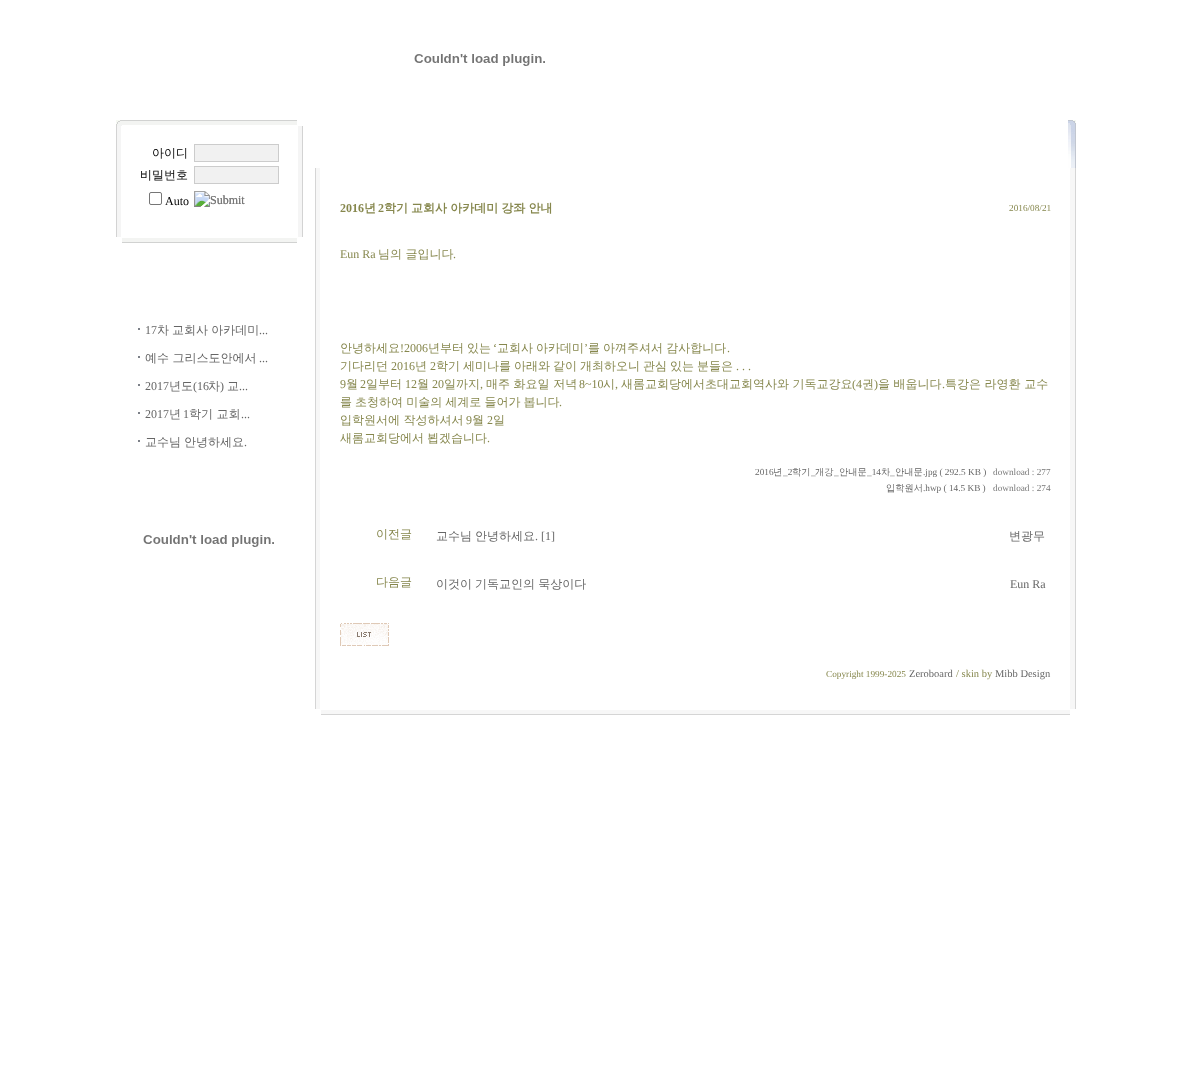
<svg xmlns="http://www.w3.org/2000/svg" width="1192" height="1089">
	<rect width="100%" height="100%" fill="#FFFFFF" />
	<image x="414" y="54" width="131" height="12" href="assets/img1.png" />
	<image x="116" y="120" width="6" height="6" href="assets/img2.png" />
	<rect x="122" y="120" width="175" height="1" fill="#D1D2D1" />
	<rect x="122" y="121" width="175" height="4" fill="#F3F4F2" />
	<rect x="116" y="126" width="1" height="111" fill="#D3D3D3" />
	<rect x="117" y="126" width="4" height="111" fill="#F5F5F5" />
	<text x="152" y="157" font-family="WenQuanYi Zen Hei" font-size="12" font-weight="500" fill="#000000">아이디</text>
	<rect x="194.5" y="144.5" width="84" height="17" fill="#F1F1F1" stroke="#CCCCCC" />
	<text x="140" y="179" font-family="WenQuanYi Zen Hei" font-size="12" font-weight="500" fill="#000000">비밀번호</text>
	<rect x="194.5" y="166.5" width="84" height="17" fill="#F1F1F1" stroke="#CCCCCC" />
	<rect x="149.5" y="192.5" width="12" height="12" rx="1.5" fill="none" stroke="#767676" />
	<text x="165" y="205" font-family="Liberation Serif" font-size="12" fill="#000000">Auto</text>
	<image x="194" y="191" width="51" height="16" href="assets/img3.png" />
	<text x="210" y="204" font-family="Liberation Serif" font-size="12" fill="#787878">Submit</text>
	<rect x="298" y="126" width="4" height="111" fill="#F5F5F5" />
	<rect x="302" y="126" width="1" height="111" fill="#D3D3D3" />
	<rect x="122" y="238" width="175" height="4" fill="#F3F4F2" />
	<rect x="122" y="242" width="175" height="1" fill="#D1D2D1" />
	<rect x="138" y="328" width="2" height="2" fill="#7C8088" />
	<text x="145" y="334" font-family="Liberation Serif" font-size="12" fill="#666666">17</text>
	<text x="157" y="334" word-spacing="-0.5" font-family="WenQuanYi Zen Hei" font-size="12" font-weight="500" fill="#666666">차 교회사 아카데미</text>
	<text x="259" y="334" font-family="Liberation Serif" font-size="12" fill="#666666">...</text>
	<rect x="138" y="356" width="2" height="2" fill="#7C8088" />
	<text x="145" y="362" font-family="WenQuanYi Zen Hei" font-size="12" font-weight="500" fill="#666666">예수 그리스도안에서</text>
	<text x="259" y="362" font-family="Liberation Serif" font-size="12" fill="#666666">...</text>
	<rect x="138" y="384" width="2" height="2" fill="#7C8088" />
	<text x="145" y="390" font-family="Liberation Serif" font-size="12" fill="#666666">2017</text>
	<text x="169" y="390" font-family="WenQuanYi Zen Hei" font-size="12" font-weight="500" fill="#666666">년도</text>
	<text x="193" y="390" font-family="Liberation Serif" font-size="12" fill="#666666">(16</text>
	<text x="208" y="390" font-family="WenQuanYi Zen Hei" font-size="12" font-weight="500" fill="#666666">차</text>
	<text x="220" y="390" font-family="Liberation Serif" font-size="12" fill="#666666">)</text>
	<text x="227" y="390" font-family="WenQuanYi Zen Hei" font-size="12" font-weight="500" fill="#666666">교</text>
	<text x="239" y="390" font-family="Liberation Serif" font-size="12" fill="#666666">...</text>
	<rect x="138" y="412" width="2" height="2" fill="#7C8088" />
	<text x="145" y="418" font-family="Liberation Serif" font-size="12" fill="#666666">2017</text>
	<text x="169" y="418" font-family="WenQuanYi Zen Hei" font-size="12" font-weight="500" fill="#666666">년</text>
	<text x="183" y="418" font-family="Liberation Serif" font-size="12" fill="#666666">1</text>
	<text x="189" y="418" font-family="WenQuanYi Zen Hei" font-size="12" font-weight="500" fill="#666666">학기 교회</text>
	<text x="241" y="418" font-family="Liberation Serif" font-size="12" fill="#666666">...</text>
	<rect x="138" y="440" width="2" height="2" fill="#7C8088" />
	<text x="145" y="446" word-spacing="-0.5" font-family="WenQuanYi Zen Hei" font-size="12" font-weight="500" fill="#666666">교수님 안녕하세요</text>
	<text x="244" y="446" font-family="Liberation Serif" font-size="12" fill="#666666">.</text>
	<image x="143" y="535" width="131" height="12" href="assets/img1.png" />
	<image x="1068" y="120" width="8" height="48" href="assets/img4.png" />
	<rect x="315" y="168" width="1" height="541" fill="#D5D5D5" />
	<rect x="316" y="168" width="4" height="541" fill="#F7F7F7" />
	<text x="340" y="212" font-family="Liberation Serif" font-size="12" font-weight="700" fill="#86874D">2016</text>
	<text x="364" y="212" font-family="WenQuanYi Zen Hei" font-size="12" font-weight="700" fill="#86874D">년</text>
	<text x="378" y="212" font-family="Liberation Serif" font-size="12" font-weight="700" fill="#86874D">2</text>
	<text x="384" y="212" word-spacing="-0.5" font-family="WenQuanYi Zen Hei" font-size="12" font-weight="700" fill="#86874D">학기 교회사 아카데미 강좌 안내</text>
	<text x="1009" y="211" font-family="Liberation Serif" font-size="9.25" fill="#86874D">2016/08/21</text>
	<text x="340" y="258" font-family="Liberation Serif" font-size="12" fill="#86874D">Eun Ra</text>
	<text x="378" y="258" font-family="WenQuanYi Zen Hei" font-size="12" font-weight="500" fill="#86874D">님의 글입니다</text>
	<text x="453" y="258" font-family="Liberation Serif" font-size="12" fill="#86874D">.</text>
	<text x="340" y="352" font-family="WenQuanYi Zen Hei" font-size="12" font-weight="500" fill="#86874D">안녕하세요</text>
	<text x="400" y="352" font-family="Liberation Serif" font-size="12" fill="#86874D">!2006</text>
	<text x="428" y="352" word-spacing="-0.5" font-family="WenQuanYi Zen Hei" font-size="12" font-weight="500" fill="#86874D">년부터 있는</text>
	<text x="493" y="352" font-family="Liberation Serif" font-size="12" fill="#86874D">‘</text>
	<text x="497" y="352" word-spacing="-0.5" font-family="WenQuanYi Zen Hei" font-size="12" font-weight="500" fill="#86874D">교회사 아카데미</text>
	<text x="584" y="352" font-family="Liberation Serif" font-size="12" fill="#86874D">’</text>
	<text x="588" y="352" word-spacing="-0.5" font-family="WenQuanYi Zen Hei" font-size="12" font-weight="500" fill="#86874D">를 아껴주셔서 감사합니다</text>
	<text x="727" y="352" font-family="Liberation Serif" font-size="12" fill="#86874D">.</text>
	<text x="340" y="370" font-family="WenQuanYi Zen Hei" font-size="12" font-weight="500" fill="#86874D">기다리던</text>
	<text x="391" y="370" font-family="Liberation Serif" font-size="12" fill="#86874D">2016</text>
	<text x="415" y="370" font-family="WenQuanYi Zen Hei" font-size="12" font-weight="500" fill="#86874D">년</text>
	<text x="430" y="370" font-family="Liberation Serif" font-size="12" fill="#86874D">2</text>
	<g font-family="WenQuanYi Zen Hei" font-size="12" font-weight="500" fill="#86874D">
		<text x="436" y="370">학기</text>
		<text x="463" y="370">세미나를</text>
		<text x="514" y="370">아래와</text>
		<text x="553" y="370">같이</text>
		<text x="580" y="370">개최하오니</text>
		<text x="643" y="370">관심</text>
		<text x="670" y="370">있는</text>
		<text x="697" y="370">분들은</text>
	</g>
	<g font-family="Liberation Serif" font-size="12" fill="#86874D">
		<text x="736" y="370">. . .</text>
		<text x="340" y="388">9</text>
	</g>
	<text x="346" y="388" font-family="WenQuanYi Zen Hei" font-size="12" font-weight="500" fill="#86874D">월</text>
	<text x="360" y="388" font-family="Liberation Serif" font-size="12" fill="#86874D">2</text>
	<text x="366" y="388" font-family="WenQuanYi Zen Hei" font-size="12" font-weight="500" fill="#86874D">일부터</text>
	<text x="405" y="388" font-family="Liberation Serif" font-size="12" fill="#86874D">12</text>
	<text x="417" y="388" font-family="WenQuanYi Zen Hei" font-size="12" font-weight="500" fill="#86874D">월</text>
	<text x="432" y="388" font-family="Liberation Serif" font-size="12" fill="#86874D">20</text>
	<text x="444" y="388" font-family="WenQuanYi Zen Hei" font-size="12" font-weight="500" fill="#86874D">일까지</text>
	<text x="480" y="388" font-family="Liberation Serif" font-size="12" fill="#86874D">,</text>
	<text x="486" y="388" font-family="WenQuanYi Zen Hei" font-size="12" font-weight="500" fill="#86874D">매주 화요일 저녁</text>
	<text x="579" y="388" font-family="Liberation Serif" font-size="12" fill="#86874D">8~10</text>
	<text x="603" y="388" font-family="WenQuanYi Zen Hei" font-size="12" font-weight="500" fill="#86874D">시</text>
	<text x="615" y="388" font-family="Liberation Serif" font-size="12" fill="#86874D">,</text>
	<text x="621" y="388" font-family="WenQuanYi Zen Hei" font-size="12" font-weight="500" fill="#86874D">새롬교회당에서초대교회역사와 기독교강요</text>
	<text x="852" y="388" font-family="Liberation Serif" font-size="12" fill="#86874D">(4</text>
	<text x="862" y="388" font-family="WenQuanYi Zen Hei" font-size="12" font-weight="500" fill="#86874D">권</text>
	<text x="874" y="388" font-family="Liberation Serif" font-size="12" fill="#86874D">)</text>
	<text x="878" y="388" font-family="WenQuanYi Zen Hei" font-size="12" font-weight="500" fill="#86874D">을 배웁니다</text>
	<text x="942" y="388" font-family="Liberation Serif" font-size="12" fill="#86874D">.</text>
	<g font-family="WenQuanYi Zen Hei" font-size="12" font-weight="500" fill="#86874D">
		<text x="945" y="388">특강은 라영환 교수</text>
		<text x="340" y="406" word-spacing="-0.5">를 초청하여 미술의 세계로 들어가 봅니다</text>
	</g>
	<text x="559" y="406" font-family="Liberation Serif" font-size="12" fill="#86874D">.</text>
	<text x="340" y="424" font-family="WenQuanYi Zen Hei" font-size="12" font-weight="500" fill="#86874D">입학원서에 작성하셔서</text>
	<text x="466" y="424" font-family="Liberation Serif" font-size="12" fill="#86874D">9</text>
	<text x="472" y="424" font-family="WenQuanYi Zen Hei" font-size="12" font-weight="500" fill="#86874D">월</text>
	<text x="487" y="424" font-family="Liberation Serif" font-size="12" fill="#86874D">2</text>
	<g font-family="WenQuanYi Zen Hei" font-size="12" font-weight="500" fill="#86874D">
		<text x="493" y="424">일</text>
		<text x="340" y="442" word-spacing="-0.5">새롬교회당에서 뵙겠습니다</text>
	</g>
	<text x="487" y="442" font-family="Liberation Serif" font-size="12" fill="#86874D">.</text>
	<text x="755" y="475" font-family="Liberation Serif" font-size="9.25" fill="#666666">2016</text>
	<text x="773" y="475" font-family="WenQuanYi Zen Hei" font-size="9.25" font-weight="500" fill="#666666">년</text>
	<text x="783" y="475" font-family="Liberation Serif" font-size="9.25" fill="#666666">_2</text>
	<text x="792" y="475" font-family="WenQuanYi Zen Hei" font-size="9.25" font-weight="500" fill="#666666">학기</text>
	<text x="811" y="475" font-family="Liberation Serif" font-size="9.25" fill="#666666">_</text>
	<text x="815" y="475" font-family="WenQuanYi Zen Hei" font-size="9.25" font-weight="500" fill="#666666">개강</text>
	<text x="834" y="475" font-family="Liberation Serif" font-size="9.25" fill="#666666">_</text>
	<text x="839" y="475" font-family="WenQuanYi Zen Hei" font-size="9.25" font-weight="500" fill="#666666">안내문</text>
	<text x="867" y="475" font-family="Liberation Serif" font-size="9.25" fill="#666666">_14</text>
	<text x="881" y="475" font-family="WenQuanYi Zen Hei" font-size="9.25" font-weight="500" fill="#666666">차</text>
	<text x="890" y="475" font-family="Liberation Serif" font-size="9.25" fill="#666666">_</text>
	<text x="895" y="475" font-family="WenQuanYi Zen Hei" font-size="9.25" font-weight="500" fill="#666666">안내문</text>
	<text x="923" y="475" font-family="Liberation Serif" font-size="9.25" fill="#666666">.jpg ( 292.5 KB )</text>
	<text x="993" y="475" font-family="Liberation Serif" font-size="9.25" fill="#787878">download : 277</text>
	<text x="886" y="491" font-family="WenQuanYi Zen Hei" font-size="9.25" font-weight="500" fill="#666666">입학원서</text>
	<text x="923" y="491" font-family="Liberation Serif" font-size="9.25" fill="#666666">.hwp ( 14.5 KB )</text>
	<text x="993" y="491" font-family="Liberation Serif" font-size="9.25" fill="#787878">download : 274</text>
	<text x="376" y="538" font-family="WenQuanYi Zen Hei" font-size="12" font-weight="500" fill="#86874D">이전글</text>
	<g font-family="WenQuanYi Zen Hei" font-size="12" font-weight="500" fill="#666666">
		<text x="436" y="540">교수님</text>
		<text x="475" y="540">안녕하세요</text>
	</g>
	<text x="535" y="540" font-family="Liberation Serif" font-size="12" fill="#666666">. [1]</text>
	<text x="1009" y="540" font-family="WenQuanYi Zen Hei" font-size="12" font-weight="500" fill="#666666">변광무</text>
	<text x="376" y="586" font-family="WenQuanYi Zen Hei" font-size="12" font-weight="500" fill="#86874D">다음글</text>
	<text x="436" y="588" word-spacing="-0.5" font-family="WenQuanYi Zen Hei" font-size="12" font-weight="500" fill="#666666">이것이 기독교인의 묵상이다</text>
	<text x="1010" y="588" font-family="Liberation Serif" font-size="12" fill="#666666">Eun Ra</text>
	<image x="340" y="623" width="49" height="23" href="assets/img5.png" />
	<text x="826" y="677" font-family="Liberation Serif" font-size="9.25" fill="#86874D">Copyright 1999-2025</text>
	<text x="909" y="677" font-family="Liberation Serif" font-size="10.5" fill="#666666">Zeroboard</text>
	<text x="956" y="677" font-family="Liberation Serif" font-size="10.5" fill="#86874D">/ skin by</text>
	<text x="995" y="677" font-family="Liberation Serif" font-size="10.5" fill="#666666">Mibb Design</text>
	<rect x="1070" y="168" width="5" height="541" fill="#F7F7F7" />
	<rect x="1075" y="168" width="1" height="541" fill="#D5D5D5" />
	<rect x="321" y="710" width="749" height="4" fill="#F7F7F7" />
	<rect x="321" y="714" width="749" height="1" fill="#D5D5D5" />
</svg>
